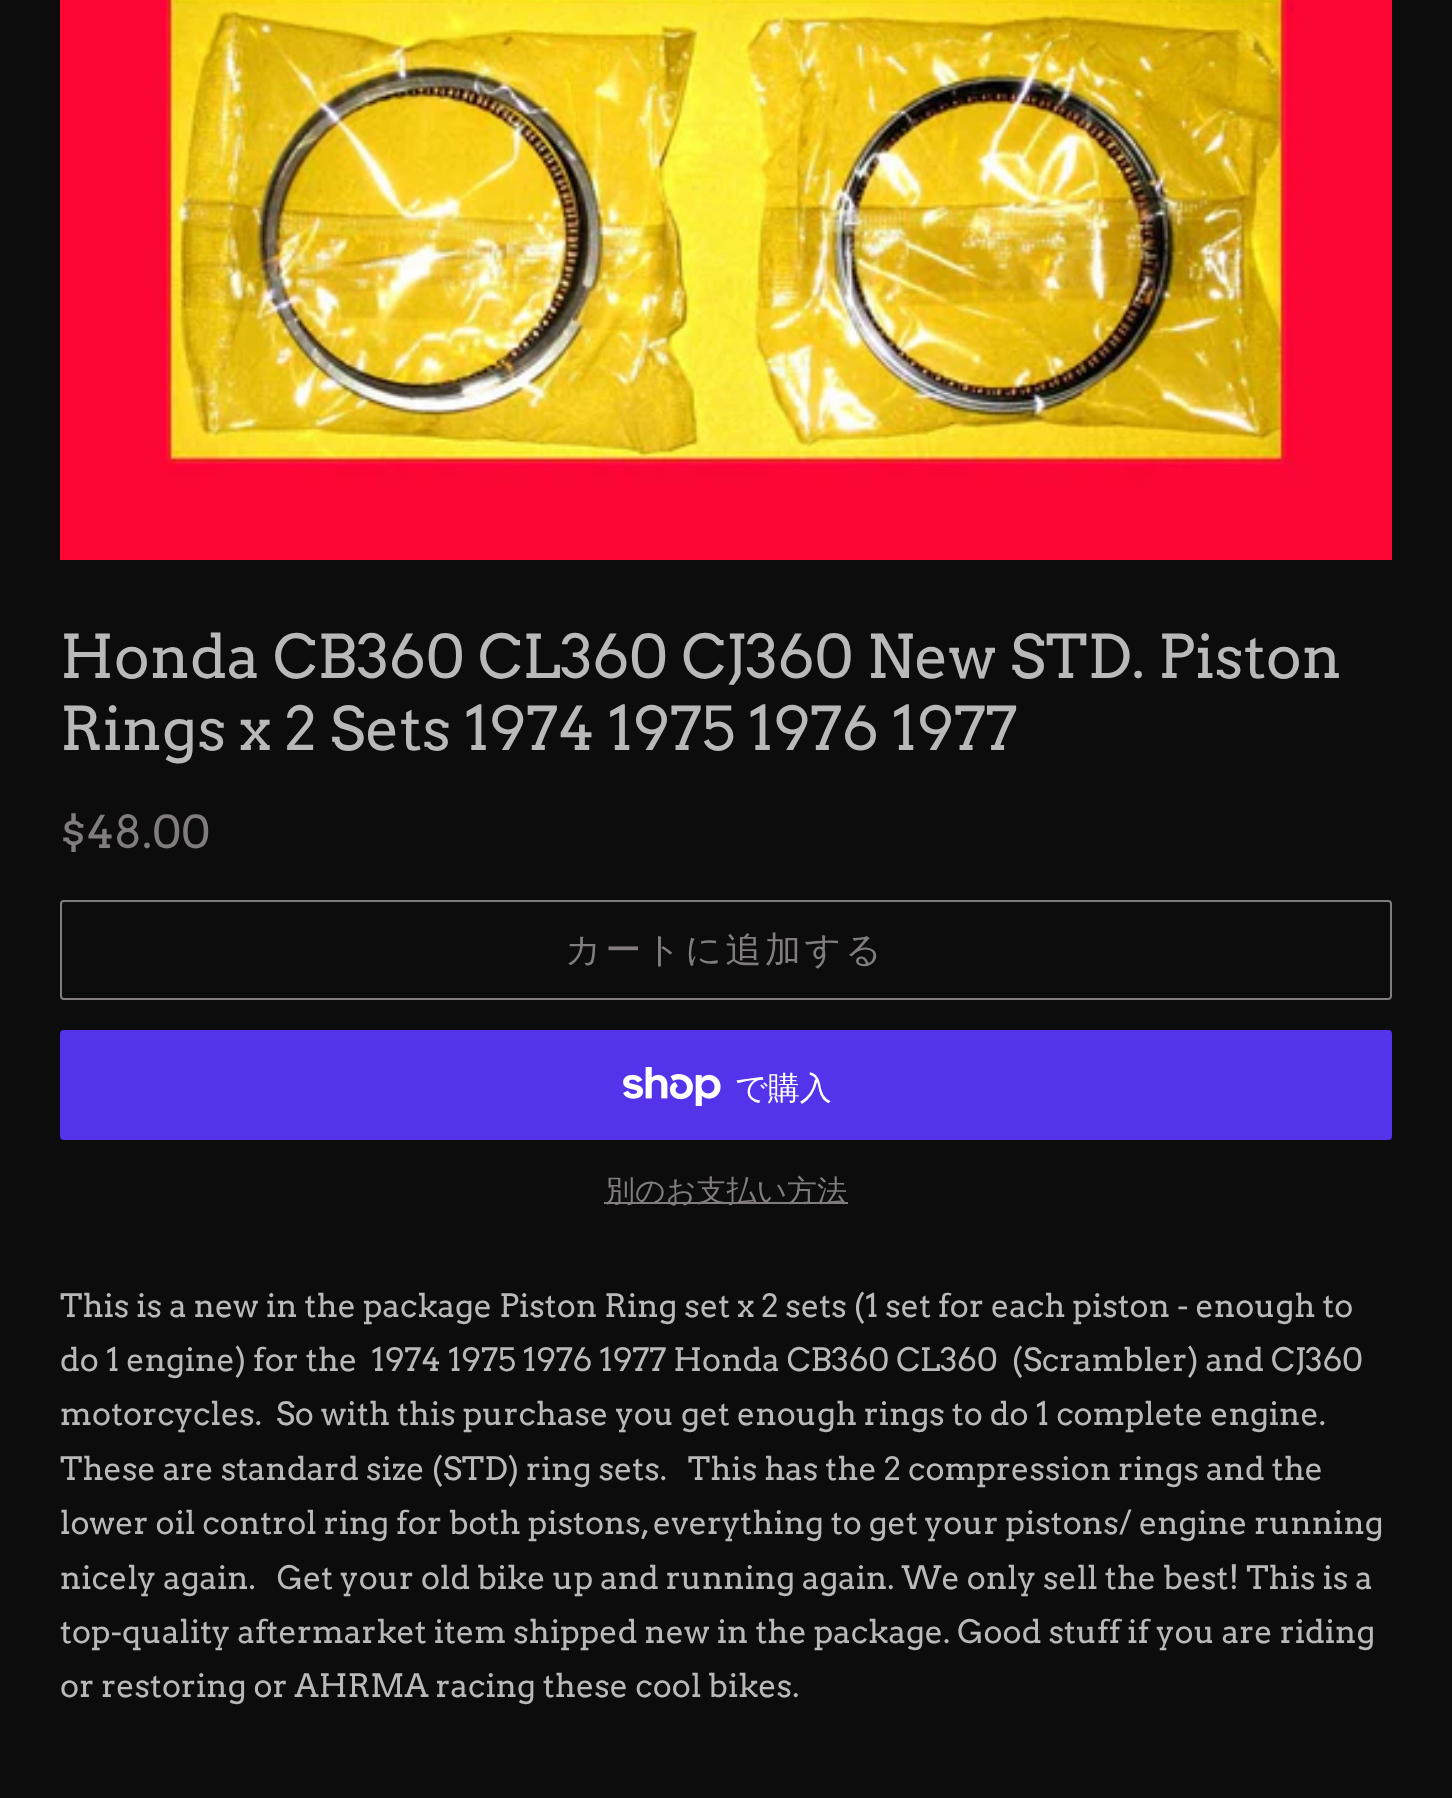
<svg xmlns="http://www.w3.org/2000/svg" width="1452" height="1798">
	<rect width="100%" height="100%" fill="#0C0C0C" />
	<image x="60" y="0" width="1332" height="560" href="assets/img1.png" />
	<g font-family="Arvo" font-size="60" fill="#B9B9B9">
		<text x="60" y="678">Honda CB360 CL360 CJ360 New STD. Piston</text>
		<text x="60" y="750">Rings x 2 Sets 1974 1975 1976 1977</text>
	</g>
	<text x="60" y="848" font-family="Arvo" font-size="45" fill="#817D7D">$48.00</text>
	<rect x="61" y="901" width="1330" height="98" rx="3" fill="none" stroke="#817D7D" stroke-width="2" />
	<text x="565" y="962" font-family="WenQuanYi Zen Hei" font-size="36" font-weight="500" letter-spacing="3.5" fill="#817D7D">カートに追加する</text>
	<rect x="60" y="1030" width="1332" height="110" rx="4" fill="#5433EB" />
	<image x="623" y="1067" width="98" height="39" href="assets/img2.png" />
	<text x="735" y="1099" font-family="WenQuanYi Zen Hei" font-size="32" font-weight="500" fill="#FFFFFF">で購入</text>
	<rect x="604" y="1202" width="244" height="2" fill="#817D7D" />
	<text x="605" y="1201" font-family="WenQuanYi Zen Hei" font-size="30" font-weight="500" fill="#817D7D">別のお支払い方法</text>
	<g font-family="Arvo" font-size="32" fill="#B9B9B9">
		<text x="60" y="1317">This is a new in the package Piston Ring set x 2 sets (1 set for each piston - enough to</text>
		<text x="60" y="1371" xml:space="preserve">do 1 engine) for the  1974 1975 1976 1977 Honda CB360 CL360  (Scrambler) and CJ360</text>
		<text x="60" y="1425" xml:space="preserve">motorcycles.  So with this purchase you get enough rings to do 1 complete engine.</text>
		<text x="60" y="1480" xml:space="preserve">These are standard size (STD) ring sets.   This has the 2 compression rings and the</text>
		<text x="60" y="1534">lower oil control ring for both pistons, everything to get your pistons/ engine running</text>
		<text x="60" y="1589" xml:space="preserve">nicely again.   Get your old bike up and running again. We only sell the best! This is a</text>
		<text x="60" y="1643">top-quality aftermarket item shipped new in the package. Good stuff if you are riding</text>
		<text x="60" y="1697">or restoring or AHRMA racing these cool bikes.</text>
	</g>
</svg>
